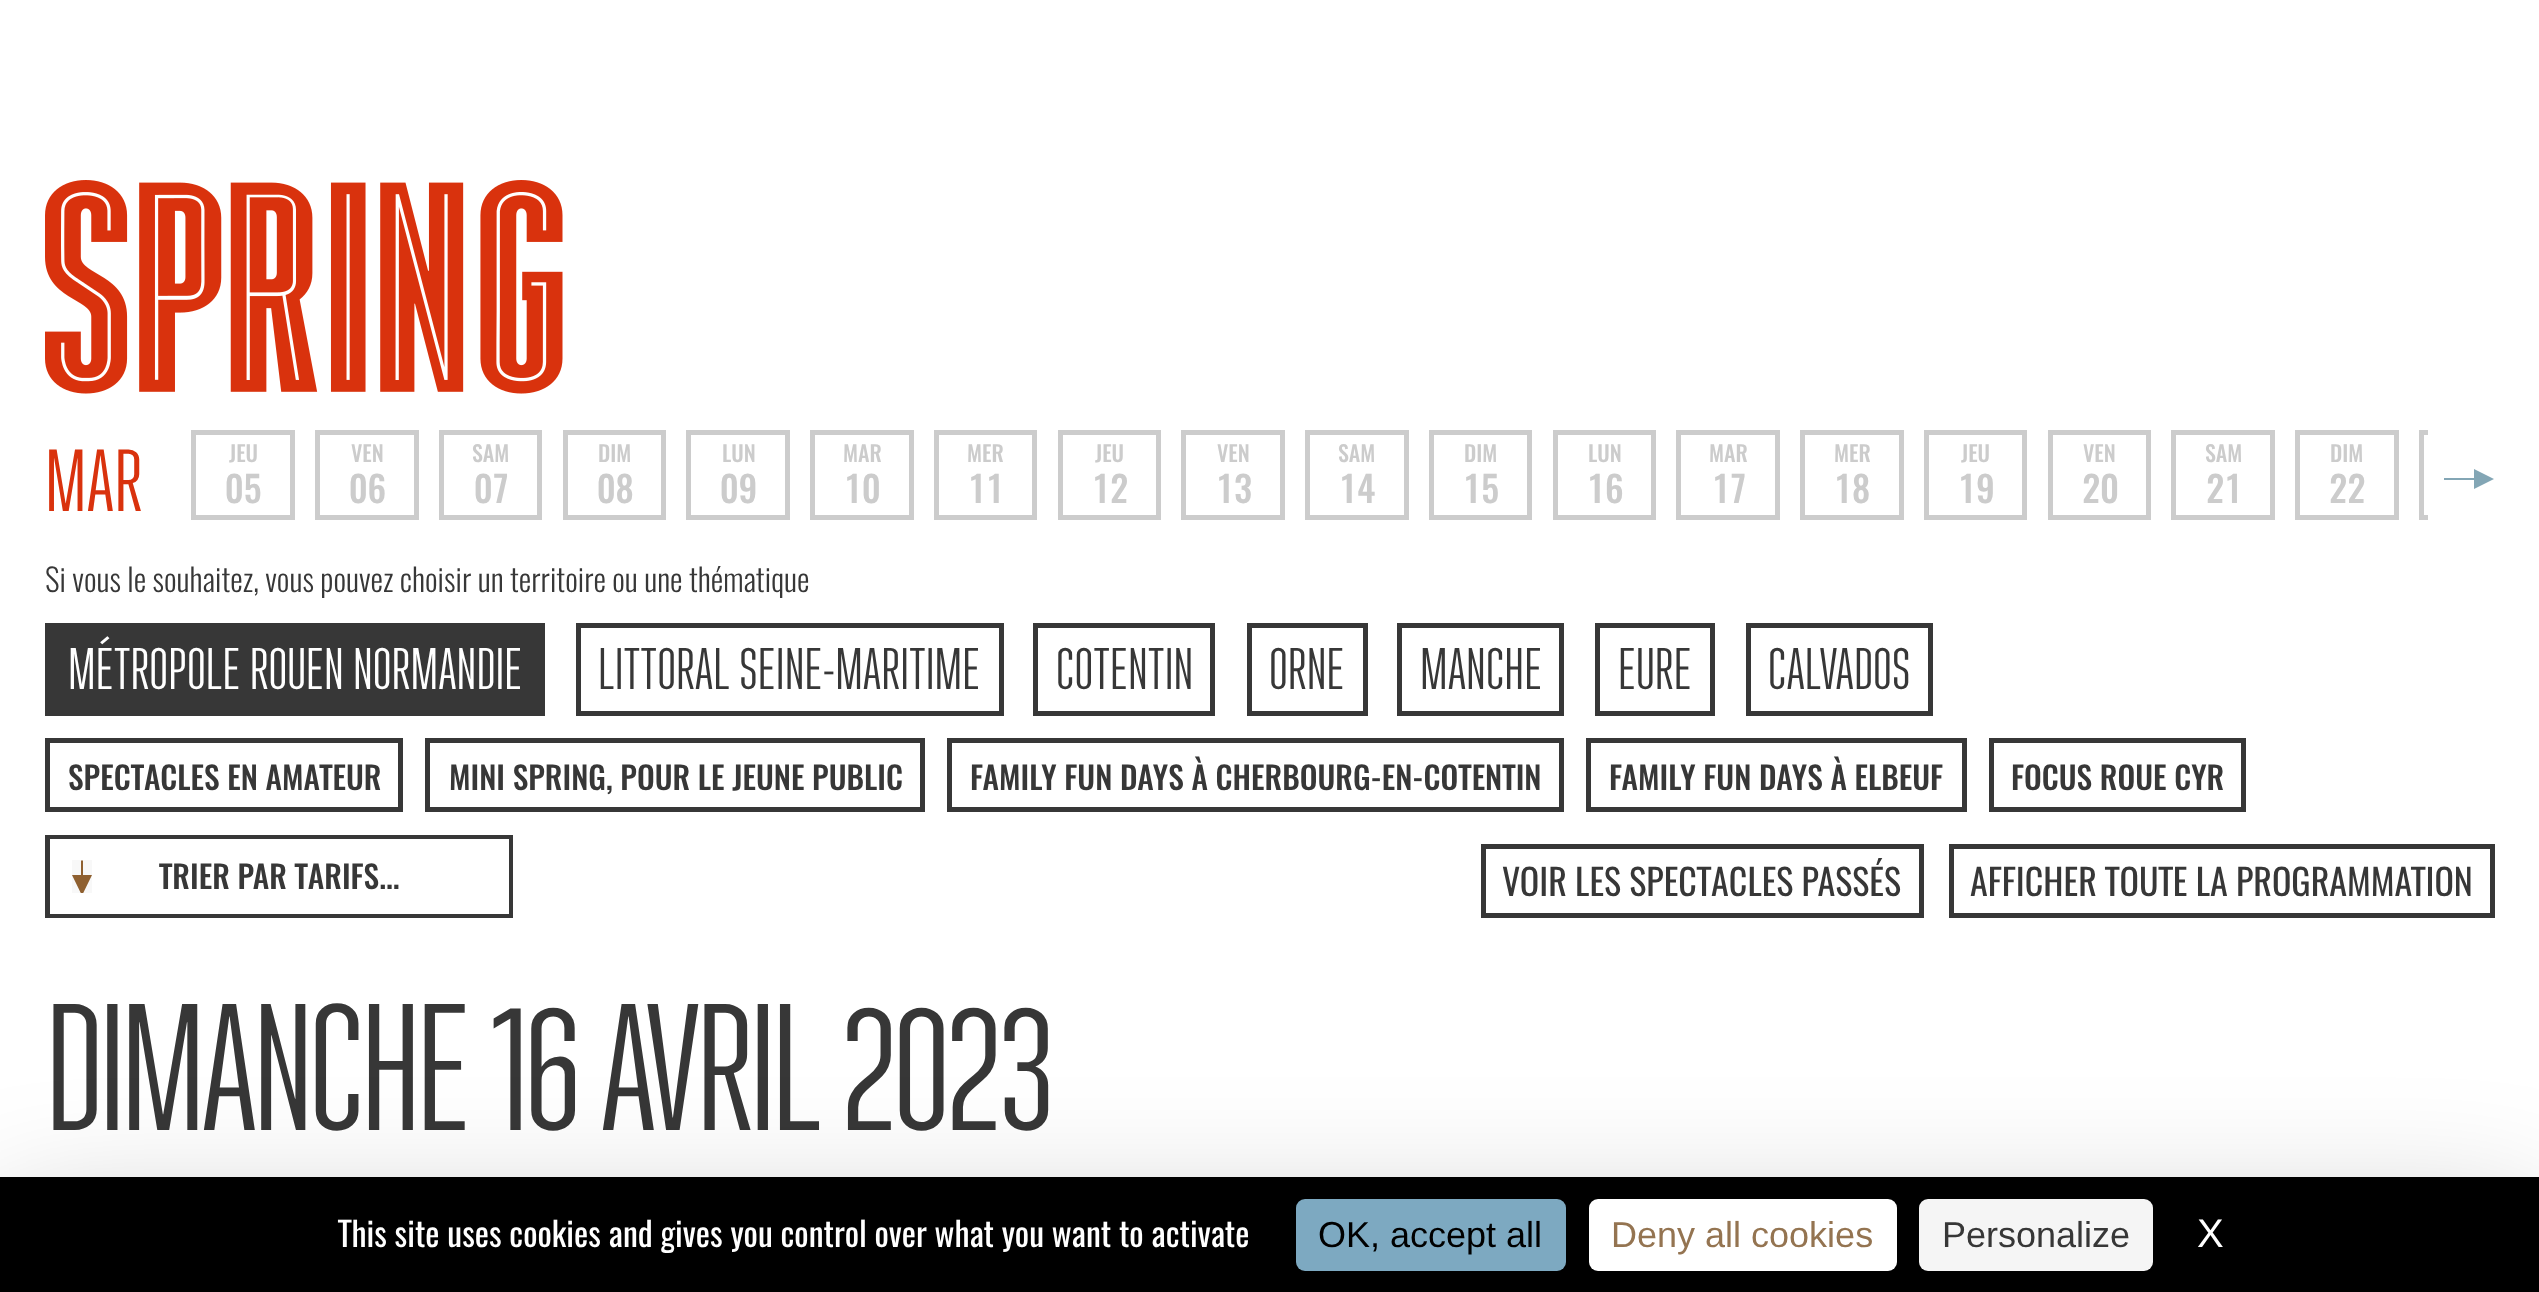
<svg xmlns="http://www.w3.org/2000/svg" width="2539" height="1292">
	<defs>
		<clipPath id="clip1"><rect x="45" y="430" width="2450" height="106" /></clipPath>
		<clipPath id="clip2"><rect x="72" y="860" width="20" height="33" /></clipPath>
	</defs>
	<rect width="100%" height="100%" fill="#FFFFFF" />
	<image x="45" y="180" width="518" height="214" href="assets/img1.png" />
	<text x="45" y="511" font-family="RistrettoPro" font-size="88" fill="#D9320D">MAR</text>
	<rect x="193.5" y="432.5" width="99" height="85" fill="none" stroke="#CCCCCC" stroke-width="5" />
	<text x="229" y="462" font-family="Oswald" font-size="22" font-weight="500" fill="#CCCCCC">JEU</text>
	<text x="225" y="503" font-family="Oswald" font-size="36" font-weight="500" fill="#CCCCCC">05</text>
	<rect x="317.5" y="432.5" width="99" height="85" fill="none" stroke="#CCCCCC" stroke-width="5" />
	<text x="351" y="462" font-family="Oswald" font-size="22" font-weight="500" fill="#CCCCCC">VEN</text>
	<text x="349" y="503" font-family="Oswald" font-size="36" font-weight="500" fill="#CCCCCC">06</text>
	<rect x="441.5" y="432.5" width="98" height="85" fill="none" stroke="#CCCCCC" stroke-width="5" />
	<text x="472" y="462" font-family="Oswald" font-size="22" font-weight="500" fill="#CCCCCC">SAM</text>
	<text x="474" y="503" font-family="Oswald" font-size="36" font-weight="500" fill="#CCCCCC">07</text>
	<rect x="565.5" y="432.5" width="98" height="85" fill="none" stroke="#CCCCCC" stroke-width="5" />
	<text x="598" y="462" font-family="Oswald" font-size="22" font-weight="500" fill="#CCCCCC">DIM</text>
	<text x="597" y="503" font-family="Oswald" font-size="36" font-weight="500" fill="#CCCCCC">08</text>
	<rect x="688.5" y="432.5" width="99" height="85" fill="none" stroke="#CCCCCC" stroke-width="5" />
	<text x="722" y="462" font-family="Oswald" font-size="22" font-weight="500" fill="#CCCCCC">LUN</text>
	<text x="720" y="503" font-family="Oswald" font-size="36" font-weight="500" fill="#CCCCCC">09</text>
	<rect x="812.5" y="432.5" width="99" height="85" fill="none" stroke="#CCCCCC" stroke-width="5" />
	<text x="843" y="462" font-family="Oswald" font-size="22" font-weight="500" fill="#CCCCCC">MAR</text>
	<text x="844" y="503" font-family="Oswald" font-size="36" font-weight="500" fill="#CCCCCC">10</text>
	<rect x="936.5" y="432.5" width="98" height="85" fill="none" stroke="#CCCCCC" stroke-width="5" />
	<text x="967" y="462" font-family="Oswald" font-size="22" font-weight="500" fill="#CCCCCC">MER</text>
	<text x="968" y="503" font-family="Oswald" font-size="36" font-weight="500" fill="#CCCCCC">11</text>
	<rect x="1060.5" y="432.5" width="98" height="85" fill="none" stroke="#CCCCCC" stroke-width="5" />
	<text x="1095" y="462" font-family="Oswald" font-size="22" font-weight="500" fill="#CCCCCC">JEU</text>
	<text x="1092" y="503" font-family="Oswald" font-size="36" font-weight="500" fill="#CCCCCC">12</text>
	<rect x="1183.5" y="432.5" width="99" height="85" fill="none" stroke="#CCCCCC" stroke-width="5" />
	<text x="1217" y="462" font-family="Oswald" font-size="22" font-weight="500" fill="#CCCCCC">VEN</text>
	<text x="1216" y="503" font-family="Oswald" font-size="36" font-weight="500" fill="#CCCCCC">13</text>
	<rect x="1307.5" y="432.5" width="99" height="85" fill="none" stroke="#CCCCCC" stroke-width="5" />
	<text x="1338" y="462" font-family="Oswald" font-size="22" font-weight="500" fill="#CCCCCC">SAM</text>
	<text x="1339" y="503" font-family="Oswald" font-size="36" font-weight="500" fill="#CCCCCC">14</text>
	<rect x="1431.5" y="432.5" width="98" height="85" fill="none" stroke="#CCCCCC" stroke-width="5" />
	<text x="1464" y="462" font-family="Oswald" font-size="22" font-weight="500" fill="#CCCCCC">DIM</text>
	<text x="1463" y="503" font-family="Oswald" font-size="36" font-weight="500" fill="#CCCCCC">15</text>
	<rect x="1555.5" y="432.5" width="98" height="85" fill="none" stroke="#CCCCCC" stroke-width="5" />
	<text x="1588" y="462" font-family="Oswald" font-size="22" font-weight="500" fill="#CCCCCC">LUN</text>
	<text x="1587" y="503" font-family="Oswald" font-size="36" font-weight="500" fill="#CCCCCC">16</text>
	<rect x="1678.5" y="432.5" width="99" height="85" fill="none" stroke="#CCCCCC" stroke-width="5" />
	<text x="1709" y="462" font-family="Oswald" font-size="22" font-weight="500" fill="#CCCCCC">MAR</text>
	<text x="1712" y="503" font-family="Oswald" font-size="36" font-weight="500" fill="#CCCCCC">17</text>
	<rect x="1802.5" y="432.5" width="99" height="85" fill="none" stroke="#CCCCCC" stroke-width="5" />
	<text x="1834" y="462" font-family="Oswald" font-size="22" font-weight="500" fill="#CCCCCC">MER</text>
	<text x="1834" y="503" font-family="Oswald" font-size="36" font-weight="500" fill="#CCCCCC">18</text>
	<rect x="1926.5" y="432.5" width="98" height="85" fill="none" stroke="#CCCCCC" stroke-width="5" />
	<text x="1961" y="462" font-family="Oswald" font-size="22" font-weight="500" fill="#CCCCCC">JEU</text>
	<text x="1958" y="503" font-family="Oswald" font-size="36" font-weight="500" fill="#CCCCCC">19</text>
	<rect x="2050.5" y="432.5" width="98" height="85" fill="none" stroke="#CCCCCC" stroke-width="5" />
	<text x="2083" y="462" font-family="Oswald" font-size="22" font-weight="500" fill="#CCCCCC">VEN</text>
	<text x="2082" y="503" font-family="Oswald" font-size="36" font-weight="500" fill="#CCCCCC">20</text>
	<rect x="2173.5" y="432.5" width="99" height="85" fill="none" stroke="#CCCCCC" stroke-width="5" />
	<text x="2205" y="462" font-family="Oswald" font-size="22" font-weight="500" fill="#CCCCCC">SAM</text>
	<text x="2206" y="503" font-family="Oswald" font-size="36" font-weight="500" fill="#CCCCCC">21</text>
	<rect x="2297.5" y="432.5" width="99" height="85" fill="none" stroke="#CCCCCC" stroke-width="5" />
	<text x="2330" y="462" font-family="Oswald" font-size="22" font-weight="500" fill="#CCCCCC">DIM</text>
	<text x="2329" y="503" font-family="Oswald" font-size="36" font-weight="500" fill="#CCCCCC">22</text>
	<g clip-path="url(#clip1)">
		<rect x="2421.5" y="432.5" width="98" height="85" fill="none" stroke="#CCCCCC" stroke-width="5" />
	</g>
	<rect x="2428" y="430" width="67" height="90" fill="#FFFFFF" />
	<path d="M2474 469L2494 479L2474 489V480H2444V478H2474Z" fill="#83A6B5" />
	<text x="45" y="592" font-family="Oswald" font-size="31.5" font-weight="300" fill="#373737">Si vous le souhaitez, vous pouvez choisir un territoire ou une thématique</text>
	<rect x="47.5" y="625.5" width="495" height="88" fill="none" stroke="#373737" stroke-width="5" />
	<rect x="50" y="628" width="490" height="83" fill="#373737" />
	<text x="68" y="689" font-family="RistrettoPro" font-size="58.5" fill="#FFFFFF">MÉTROPOLE ROUEN NORMANDIE</text>
	<rect x="578.5" y="625.5" width="423" height="88" fill="none" stroke="#373737" stroke-width="5" />
	<text x="598" y="689" font-family="RistrettoPro" font-size="58.5" fill="#373737">LITTORAL SEINE-MARITIME</text>
	<rect x="1035.5" y="625.5" width="177" height="88" fill="none" stroke="#373737" stroke-width="5" />
	<text x="1056" y="689" font-family="RistrettoPro" font-size="58.5" fill="#373737">COTENTIN</text>
	<rect x="1249.5" y="625.5" width="116" height="88" fill="none" stroke="#373737" stroke-width="5" />
	<text x="1269" y="689" font-family="RistrettoPro" font-size="58.5" fill="#373737">ORNE</text>
	<rect x="1399.5" y="625.5" width="162" height="88" fill="none" stroke="#373737" stroke-width="5" />
	<text x="1420" y="689" font-family="RistrettoPro" font-size="58.5" fill="#373737">MANCHE</text>
	<rect x="1597.5" y="625.5" width="115" height="88" fill="none" stroke="#373737" stroke-width="5" />
	<text x="1618" y="689" font-family="RistrettoPro" font-size="58.5" fill="#373737">EURE</text>
	<rect x="1748.5" y="625.5" width="182" height="88" fill="none" stroke="#373737" stroke-width="5" />
	<text x="1768" y="689" font-family="RistrettoPro" font-size="58.5" fill="#373737">CALVADOS</text>
	<rect x="47.5" y="740.5" width="353" height="69" fill="none" stroke="#373737" stroke-width="5" />
	<text x="68" y="790" font-family="Oswald" font-size="31.5" font-weight="500" fill="#373737">SPECTACLES EN AMATEUR</text>
	<rect x="427.5" y="740.5" width="495" height="69" fill="none" stroke="#373737" stroke-width="5" />
	<text x="449" y="790" font-family="Oswald" font-size="31.5" font-weight="500" fill="#373737">MINI SPRING, POUR LE JEUNE PUBLIC</text>
	<rect x="949.5" y="740.5" width="612" height="69" fill="none" stroke="#373737" stroke-width="5" />
	<text x="970" y="790" font-family="Oswald" font-size="31.5" font-weight="500" fill="#373737">FAMILY FUN DAYS À CHERBOURG-EN-COTENTIN</text>
	<rect x="1588.5" y="740.5" width="376" height="69" fill="none" stroke="#373737" stroke-width="5" />
	<text x="1609" y="790" font-family="Oswald" font-size="31.5" font-weight="500" fill="#373737">FAMILY FUN DAYS À ELBEUF</text>
	<rect x="1991.5" y="740.5" width="252" height="69" fill="none" stroke="#373737" stroke-width="5" />
	<text x="2011" y="790" font-family="Oswald" font-size="31.5" font-weight="500" fill="#373737">FOCUS ROUE CYR</text>
	<rect x="47.5" y="837.5" width="463" height="78" fill="none" stroke="#373737" stroke-width="5" />
	<rect x="50" y="839" width="459" height="75" fill="#FFFFFF" />
	<rect x="72" y="860" width="20" height="33" fill="#F8F8F8" />
	<g clip-path="url(#clip2)">
		<path d="M92 875L82 895.5L72 875H81V860.5H83V875Z" fill="#8F6030" />
	</g>
	<text x="159" y="889" font-family="Oswald" font-size="31.5" font-weight="500" fill="#373737">TRIER PAR TARIFS...</text>
	<rect x="1483.5" y="846.5" width="438" height="69" fill="none" stroke="#373737" stroke-width="5" />
	<text x="1502" y="896" font-family="Oswald" font-size="36" fill="#373737">VOIR LES SPECTACLES PASSÉS</text>
	<rect x="1951.5" y="846.5" width="541" height="69" fill="none" stroke="#373737" stroke-width="5" />
	<text x="1970" y="896" font-family="Oswald" font-size="36" fill="#373737">AFFICHER TOUTE LA PROGRAMMATION</text>
	<text x="45" y="1130" font-family="RistrettoPro" font-size="180" letter-spacing="-5" fill="#373737">DIMANCHE 16 AVRIL 2023</text>
	<rect x="0" y="1222" width="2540" height="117" fill="#000000" fill-opacity="0.25" filter="blur(67.5px)" />
	<rect x="0" y="1177" width="2539" height="115" fill="#000000" />
	<text x="338" y="1247" font-family="Oswald" font-size="33.75" fill="#FFFFFF">This site uses cookies and gives you control over what you want to activate</text>
	<rect x="1296" y="1199" width="270" height="72" rx="9" fill="#7DA9C1" />
	<text x="1318" y="1247" font-family="Liberation Sans" font-size="36" fill="#000000">OK, accept all</text>
	<rect x="1589" y="1199" width="308" height="72" rx="9" fill="#FFFFFF" />
	<text x="1611" y="1247" font-family="Liberation Sans" font-size="36" fill="#947451">Deny all cookies</text>
	<rect x="1919" y="1199" width="234" height="72" rx="9" fill="#F5F5F5" />
	<text x="1942" y="1247" font-family="Liberation Sans" font-size="36" fill="#373737">Personalize</text>
	<text x="2197" y="1247" font-family="Liberation Sans" font-size="40" fill="#FFFFFF">X</text>
</svg>
